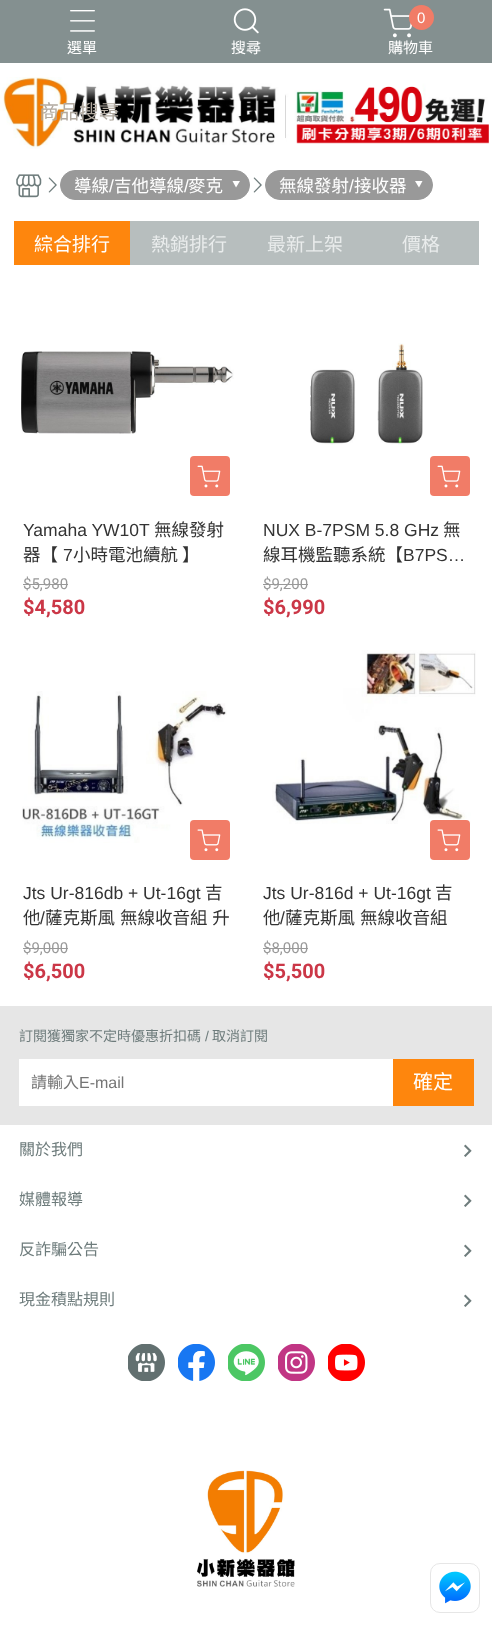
<svg xmlns="http://www.w3.org/2000/svg" width="492" height="1625">
	<rect width="100%" height="100%" fill="#FFFFFF" />
	<rect x="0" y="0" width="492" height="63" fill="#849090" />
	<image x="383" y="8" width="29" height="30" href="assets/img1.png" />
	<circle cx="421.5" cy="17.5" r="12.5" fill="#F17C67" />
	<text x="417" y="23" font-family="Liberation Sans" font-size="15" letter-spacing="1" fill="#FFFFFF">0</text>
	<text x="388" y="53" font-family="Noto Sans CJK TC" font-size="15" fill="#FFFFFF">購物車</text>
	<image x="233" y="8" width="26" height="26" href="assets/img2.png" />
	<text x="231" y="53" font-family="Noto Sans CJK TC" font-size="15" fill="#FFFFFF">搜尋</text>
	<image x="0" y="77" width="489" height="72" href="assets/img4.png" />
	<text x="39" y="119" font-family="Noto Sans CJK TC" font-size="20" fill="#B1A99F">商品搜尋</text>
	<image x="70" y="10" width="25" height="22" href="assets/img3.png" />
	<text x="67" y="53" font-family="Noto Sans CJK TC" font-size="15" fill="#FFFFFF">選單</text>
	<image x="16" y="174" width="26" height="24" href="assets/img5.png" />
	<image x="48" y="177" width="9" height="16" href="assets/img6.png" />
	<rect x="60.5" y="170.5" width="189" height="29" rx="14.5" fill="#999999" stroke="#999999" />
	<text x="74" y="192" font-family="Noto Sans CJK TC" font-size="17.5" fill="#FFFFFF">導線</text>
	<text x="109" y="192" font-family="Liberation Sans" font-size="17.5" fill="#FFFFFF">/</text>
	<text x="114" y="192" font-family="Noto Sans CJK TC" font-size="17.5" fill="#FFFFFF">吉他導線</text>
	<text x="184" y="192" font-family="Liberation Sans" font-size="17.5" fill="#FFFFFF">/</text>
	<text x="188" y="192" font-family="Noto Sans CJK TC" font-size="17.5" fill="#FFFFFF">麥克</text>
	<path d="M232.5 181H240L236 187.5Z" fill="#FFFFFF" />
	<image x="253" y="177" width="9" height="16" href="assets/img6.png" />
	<rect x="265.5" y="170.5" width="167" height="29" rx="14.5" fill="#999999" stroke="#999999" />
	<text x="279" y="192" font-family="Noto Sans CJK TC" font-size="17.5" fill="#FFFFFF">無線發射</text>
	<text x="349" y="192" font-family="Liberation Sans" font-size="17.5" fill="#FFFFFF">/</text>
	<text x="354" y="192" font-family="Noto Sans CJK TC" font-size="17.5" fill="#FFFFFF">接收器</text>
	<path d="M415 181H422.5L419 187.5Z" fill="#FFFFFF" />
	<rect x="14" y="221" width="116" height="44" fill="#FE860D" />
	<text x="34" y="251" font-family="Noto Sans CJK TC" font-size="19" fill="#FFFFFF">綜合排行</text>
	<rect x="130" y="221" width="349" height="44" fill="#B7BEBE" />
	<g font-family="Noto Sans CJK TC" font-size="19" fill="#E9ECEC">
		<text x="151" y="251">熱銷排行</text>
		<text x="267" y="251">最新上架</text>
		<text x="402" y="251">價格</text>
	</g>
	<image x="21" y="351" width="213" height="83" href="assets/img7.png" />
	<rect x="190" y="456" width="40" height="40" rx="4" fill="#F17C67" />
	<image x="197" y="465" width="24" height="23" href="assets/img8.png" />
	<text x="23" y="536" font-family="Liberation Sans" font-size="17.5" fill="#333333">Yamaha YW10T</text>
	<g font-family="Noto Sans CJK TC" font-size="17.5" fill="#333333">
		<text x="154" y="536">無線發射</text>
		<text x="23" y="561">器【</text>
	</g>
	<text x="63" y="561" font-family="Liberation Sans" font-size="17.5" fill="#333333">7</text>
	<text x="73" y="561" font-family="Noto Sans CJK TC" font-size="17.5" fill="#333333">小時電池續航 】</text>
	<text x="23" y="589" font-family="Roboto" font-size="15" fill="#999999">$5,980</text>
	<rect x="23" y="584" width="45" height="1" fill="#999999" />
	<text x="23" y="614" font-family="Roboto" font-size="20" font-weight="700" fill="#CB3747">$4,580</text>
	<image x="310" y="343" width="113" height="102" href="assets/img9.png" />
	<rect x="430" y="456" width="40" height="40" rx="4" fill="#F17C67" />
	<image x="437" y="465" width="24" height="23" href="assets/img8.png" />
	<text x="263" y="536" font-family="Liberation Sans" font-size="17.5" fill="#333333">NUX B-7PSM 5.8 GHz</text>
	<g font-family="Noto Sans CJK TC" font-size="17.5" fill="#333333">
		<text x="443" y="536">無</text>
		<text x="263" y="561">線耳機監聽系統【</text>
	</g>
	<text x="403" y="561" font-family="Liberation Sans" font-size="17.5" fill="#333333">B7PS…</text>
	<text x="263" y="589" font-family="Roboto" font-size="15" fill="#999999">$9,200</text>
	<rect x="263" y="584" width="45" height="1" fill="#999999" />
	<text x="263" y="614" font-family="Roboto" font-size="20" font-weight="700" fill="#CB3747">$6,990</text>
	<image x="22" y="691" width="205" height="152" href="assets/img10.png" />
	<rect x="190" y="820" width="40" height="40" rx="4" fill="#F17C67" />
	<image x="197" y="829" width="24" height="23" href="assets/img11.png" />
	<text x="23" y="899" font-family="Liberation Sans" font-size="17.5" fill="#333333">Jts Ur-816db + Ut-16gt</text>
	<g font-family="Noto Sans CJK TC" font-size="17.5" fill="#333333">
		<text x="205" y="899">吉</text>
		<text x="23" y="924">他</text>
	</g>
	<text x="40" y="924" font-family="Liberation Sans" font-size="17.5" fill="#333333">/</text>
	<text x="45" y="924" word-spacing="1" font-family="Noto Sans CJK TC" font-size="17.5" fill="#333333">薩克斯風 無線收音組 升</text>
	<text x="23" y="953" font-family="Roboto" font-size="15" fill="#999999">$9,000</text>
	<rect x="23" y="948" width="45" height="1" fill="#999999" />
	<text x="23" y="978" font-family="Roboto" font-size="20" font-weight="700" fill="#CB3747">$6,500</text>
	<image x="272" y="650" width="204" height="174" href="assets/img12.png" />
	<rect x="430" y="820" width="40" height="40" rx="4" fill="#F17C67" />
	<image x="437" y="829" width="24" height="23" href="assets/img11.png" />
	<text x="263" y="899" font-family="Liberation Sans" font-size="17.5" fill="#333333">Jts Ur-816d + Ut-16gt</text>
	<g font-family="Noto Sans CJK TC" font-size="17.5" fill="#333333">
		<text x="435" y="899">吉</text>
		<text x="263" y="924">他</text>
	</g>
	<text x="280" y="924" font-family="Liberation Sans" font-size="17.5" fill="#333333">/</text>
	<text x="285" y="924" word-spacing="1" font-family="Noto Sans CJK TC" font-size="17.5" fill="#333333">薩克斯風 無線收音組</text>
	<text x="263" y="953" font-family="Roboto" font-size="15" fill="#999999">$8,000</text>
	<rect x="263" y="948" width="45" height="1" fill="#999999" />
	<text x="263" y="978" font-family="Roboto" font-size="20" font-weight="700" fill="#CB3747">$5,500</text>
	<rect x="0" y="1006" width="492" height="119" fill="#E6E6E6" />
	<text x="19" y="1041" font-family="Noto Sans CJK TC" font-size="14" fill="#6E7C7C">訂閱獲獨家不定時優惠折扣碼</text>
	<text x="205" y="1041" font-family="Liberation Sans" font-size="14" fill="#6E7C7C">/</text>
	<text x="212" y="1041" font-family="Noto Sans CJK TC" font-size="14" fill="#6E7C7C">取消訂閱</text>
	<rect x="19" y="1059" width="374" height="47" fill="#FFFFFF" />
	<text x="31" y="1088" font-family="Noto Sans CJK TC" font-size="16" fill="#757575">請輸入</text>
	<text x="79" y="1088" font-family="Liberation Sans" font-size="16" fill="#757575">E-mail</text>
	<rect x="393" y="1059" width="81" height="47" fill="#FE860D" />
	<text x="413" y="1089" font-family="Noto Sans CJK TC" font-size="20" fill="#FFFFFF">確定</text>
	<text x="19" y="1155" font-family="Noto Sans CJK TC" font-size="16" fill="#6E7C7C">關於我們</text>
	<image x="464" y="1144" width="8" height="13" href="assets/img13.png" />
	<text x="19" y="1205" font-family="Noto Sans CJK TC" font-size="16" fill="#6E7C7C">媒體報導</text>
	<image x="464" y="1194" width="8" height="13" href="assets/img13.png" />
	<text x="19" y="1255" font-family="Noto Sans CJK TC" font-size="16" fill="#6E7C7C">反詐騙公告</text>
	<image x="464" y="1244" width="8" height="13" href="assets/img13.png" />
	<text x="19" y="1305" font-family="Noto Sans CJK TC" font-size="16" fill="#6E7C7C">現金積點規則</text>
	<image x="464" y="1294" width="8" height="13" href="assets/img13.png" />
	<image x="128" y="1344" width="37" height="37" href="assets/img14.png" />
	<image x="178" y="1344" width="37" height="37" href="assets/img15.png" />
	<image x="228" y="1344" width="37" height="37" href="assets/img16.png" />
	<image x="278" y="1344" width="37" height="37" href="assets/img17.png" />
	<image x="328" y="1344" width="37" height="37" href="assets/img18.png" />
	<image x="197" y="1470" width="98" height="117" href="assets/img19.png" />
	<rect x="430.5" y="1563.5" width="49" height="49" rx="9.5" fill="none" stroke="#E6E6E6" />
	<image x="439" y="1571" width="32" height="33" href="assets/img20.png" />
</svg>
